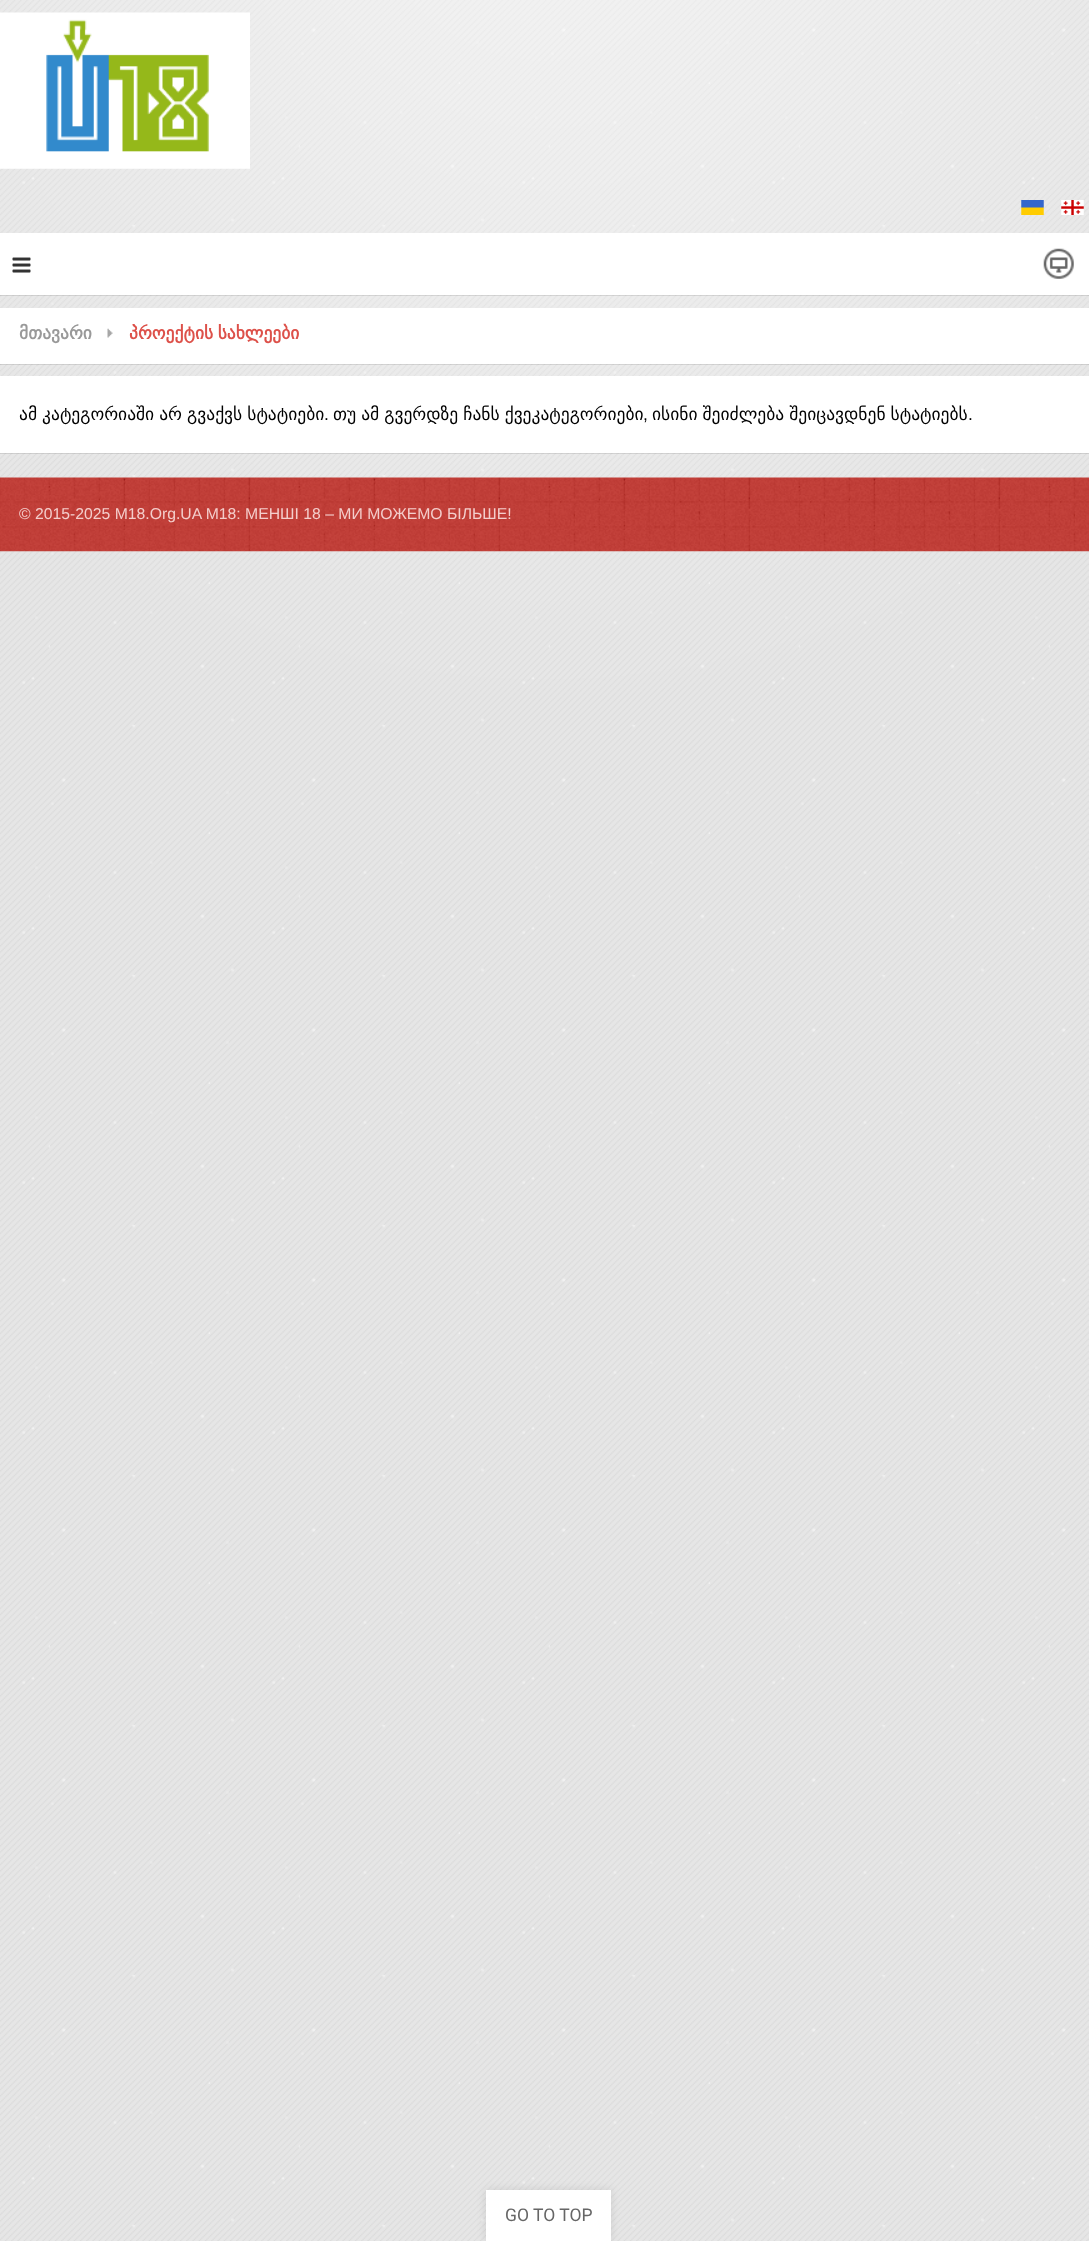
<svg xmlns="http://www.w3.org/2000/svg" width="1089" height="2241">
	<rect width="100%" height="100%" fill="#FFFFFF" />
	<image x="0" y="0" width="1089" height="2241" href="assets/img1.png" />
	<image x="0" y="12" width="250" height="157" href="assets/img2.png" />
	<image x="1021" y="200" width="23" height="15" href="assets/img3.png" />
	<image x="1061" y="200" width="23" height="15" href="assets/img4.png" />
	<rect x="0" y="295" width="1089" height="1" fill="#000000" fill-opacity="0.1" />
	<rect x="0" y="233" width="1089" height="62" fill="#FFFFFF" />
	<image x="12" y="257" width="19" height="16" href="assets/img5.png" />
	<image x="1043" y="248" width="31" height="31" href="assets/img6.png" />
	<rect x="0" y="364" width="1089" height="1" fill="#000000" fill-opacity="0.1" />
	<rect x="0" y="308" width="1089" height="56" fill="#FFFFFF" />
	<image x="107" y="328" width="6" height="10" href="assets/img7.png" />
	<text x="19" y="339" font-family="DejaVu Sans" font-size="17.5" font-weight="700" fill="#999999">მთავარი</text>
	<text x="129" y="339" word-spacing="-1" font-family="DejaVu Sans" font-size="17.5" font-weight="700" fill="#DD514A">პროექტის სახლეები</text>
	<rect x="0" y="453" width="1089" height="1" fill="#000000" fill-opacity="0.1" />
	<rect x="0" y="376" width="1089" height="77" fill="#FFFFFF" />
	<text x="19" y="420" word-spacing="-0.5" font-family="DejaVu Sans" font-size="17.5" fill="#000000">ამ კატეგორიაში არ გვაქვს სტატიები</text>
	<text x="324" y="420" font-family="Liberation Sans" font-size="17.5" fill="#000000">.</text>
	<text x="333" y="420" word-spacing="-0.5" font-family="DejaVu Sans" font-size="17.5" fill="#000000">თუ ამ გვერდზე ჩანს ქვეკატეგორიები</text>
	<text x="643" y="420" font-family="Liberation Sans" font-size="17.5" fill="#000000">,</text>
	<text x="652" y="420" word-spacing="-0.5" font-family="DejaVu Sans" font-size="17.5" fill="#000000">ისინი შეიძლება შეიცავდნენ სტატიებს</text>
	<text x="968" y="420" font-family="Liberation Sans" font-size="17.5" fill="#000000">.</text>
	<image x="0" y="477" width="1089" height="75" href="assets/img8.png" />
	<text x="19" y="519" font-family="Liberation Sans" font-size="15.75" fill="#F4CECC">© 2015-2025 M18.Org.UA М18: МЕНШІ 18 – МИ МОЖЕМО БІЛЬШЕ!</text>
	<rect x="486" y="2190" width="125" height="51" fill="#000000" fill-opacity="0.1" filter="blur(5px)" />
	<rect x="486" y="2190" width="125" height="51" fill="#FFFFFF" />
	<text x="505" y="2221" font-family="Roboto" font-size="17.5" fill="#666666">GO TO TOP</text>
</svg>
